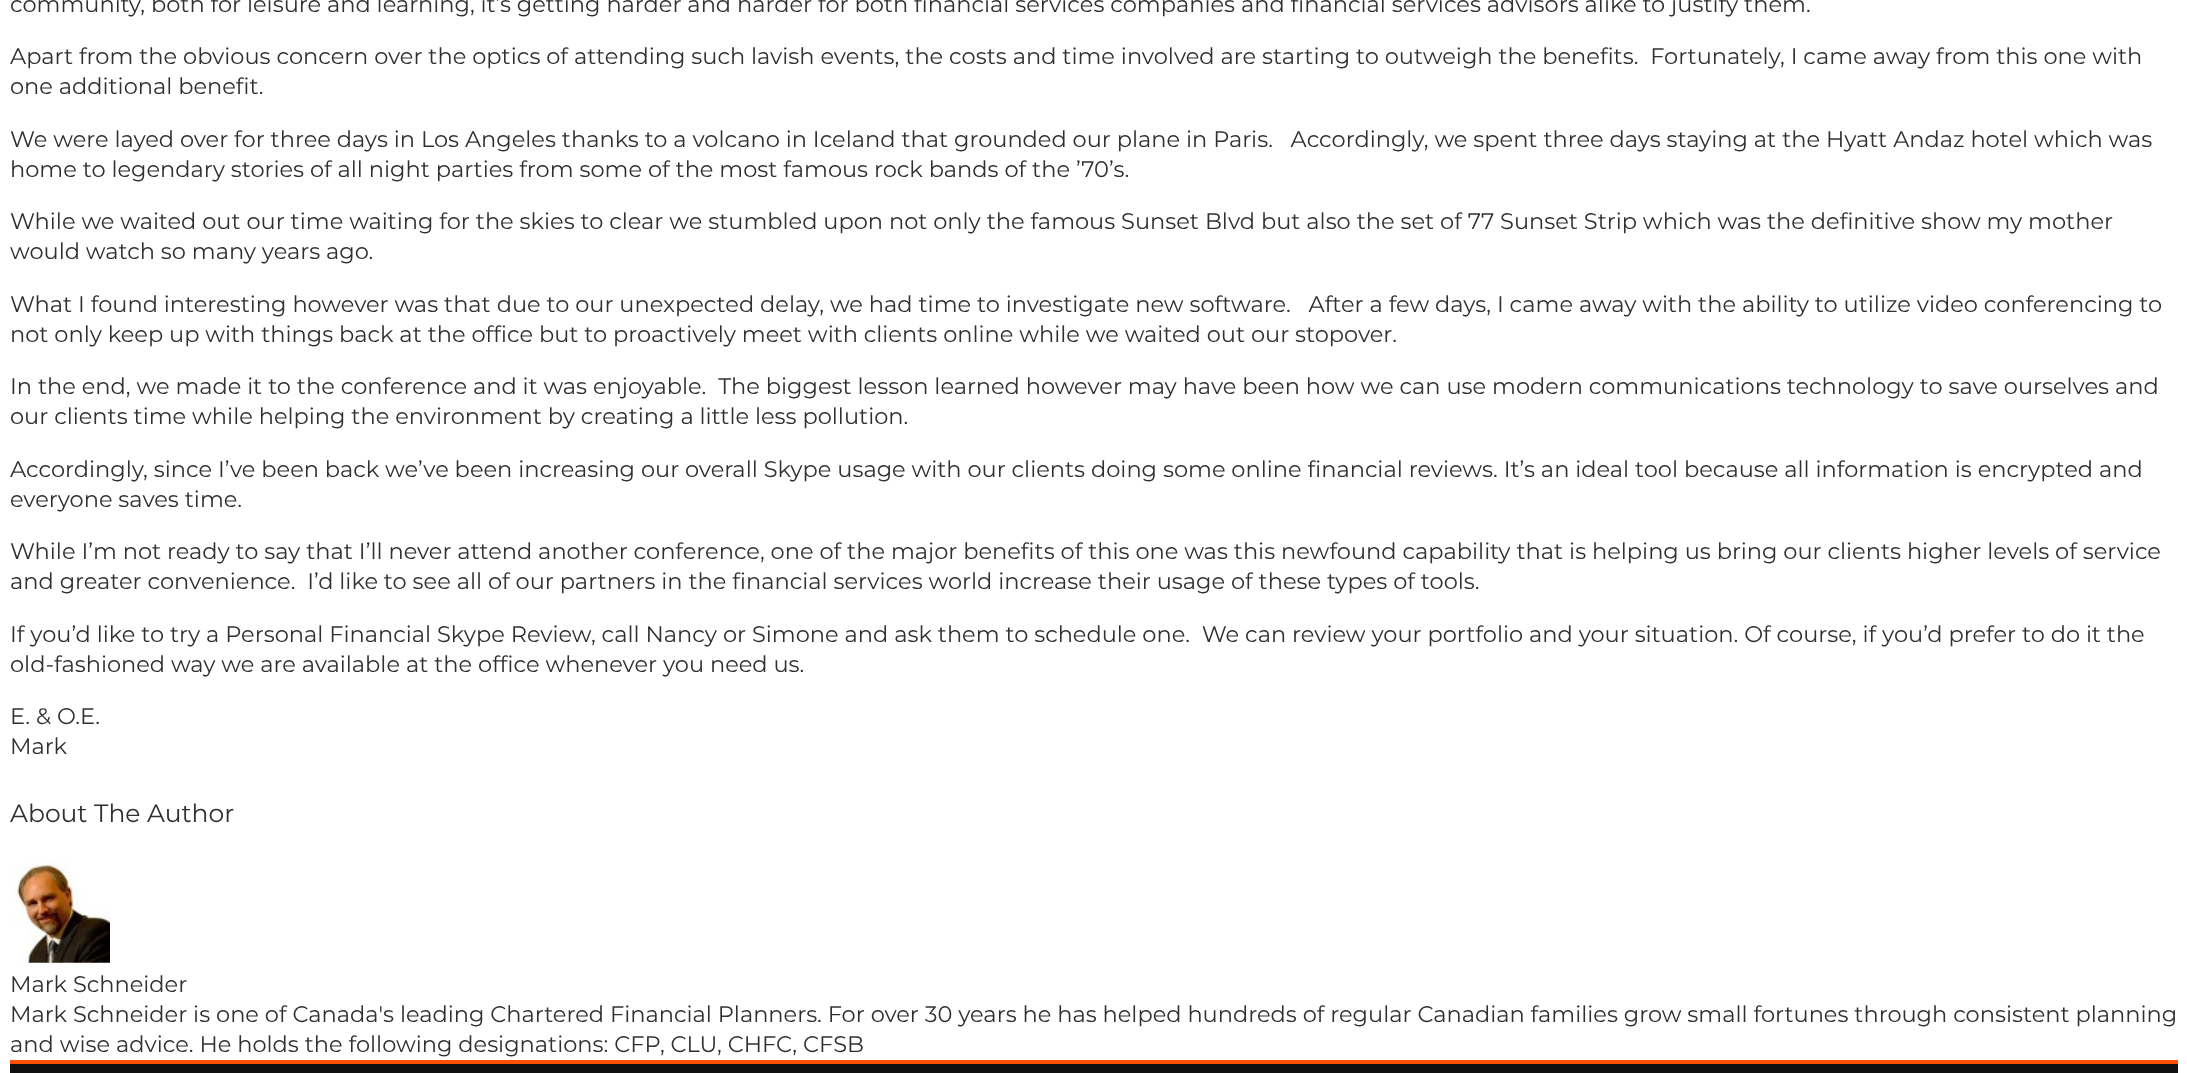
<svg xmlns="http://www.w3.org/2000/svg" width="2187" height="1073">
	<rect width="100%" height="100%" fill="#FFFFFF" />
	<g font-family="Montserrat" font-size="22.5" font-weight="100" fill="#303030">
		<text x="10" y="12">community, both for leisure and learning, it’s getting harder and harder for both financial services companies and financial services advisors alike to justify them.</text>
		<text x="10" y="64" xml:space="preserve">Apart from the obvious concern over the optics of attending such lavish events, the costs and time involved are starting to outweigh the benefits.  Fortunately, I came away from this one with</text>
		<text x="10" y="94">one additional benefit.</text>
		<text x="10" y="147" xml:space="preserve">We were layed over for three days in Los Angeles thanks to a volcano in Iceland that grounded our plane in Paris.   Accordingly, we spent three days staying at the Hyatt Andaz hotel which was</text>
		<text x="10" y="177">home to legendary stories of all night parties from some of the most famous rock bands of the ’70’s.</text>
		<text x="10" y="229">While we waited out our time waiting for the skies to clear we stumbled upon not only the famous Sunset Blvd but also the set of 77 Sunset Strip which was the definitive show my mother</text>
		<text x="10" y="259">would watch so many years ago.</text>
		<text x="10" y="312" xml:space="preserve">What I found interesting however was that due to our unexpected delay, we had time to investigate new software.   After a few days, I came away with the ability to utilize video conferencing to</text>
		<text x="10" y="342">not only keep up with things back at the office but to proactively meet with clients online while we waited out our stopover.</text>
		<text x="10" y="394" xml:space="preserve">In the end, we made it to the conference and it was enjoyable.  The biggest lesson learned however may have been how we can use modern communications technology to save ourselves and</text>
		<text x="10" y="424">our clients time while helping the environment by creating a little less pollution.</text>
		<text x="10" y="477">Accordingly, since I’ve been back we’ve been increasing our overall Skype usage with our clients doing some online financial reviews. It’s an ideal tool because all information is encrypted and</text>
		<text x="10" y="507">everyone saves time.</text>
		<text x="10" y="559">While I’m not ready to say that I’ll never attend another conference, one of the major benefits of this one was this newfound capability that is helping us bring our clients higher levels of service</text>
		<text x="10" y="589" xml:space="preserve">and greater convenience.  I’d like to see all of our partners in the financial services world increase their usage of these types of tools.</text>
		<text x="10" y="642" xml:space="preserve">If you’d like to try a Personal Financial Skype Review, call Nancy or Simone and ask them to schedule one.  We can review your portfolio and your situation. Of course, if you’d prefer to do it the</text>
		<text x="10" y="672">old-fashioned way we are available at the office whenever you need us.</text>
		<text x="10" y="724">E. &amp; O.E.</text>
		<text x="10" y="754">Mark</text>
	</g>
	<text x="10" y="822" font-family="Montserrat" font-size="25" font-weight="100" fill="#303030">About The Author</text>
	<image x="10" y="863" width="100" height="100" href="assets/img1.png" />
	<g font-family="Montserrat" font-size="22.5" font-weight="100" fill="#303030">
		<text x="10" y="992">Mark Schneider</text>
		<text x="10" y="1022">Mark Schneider is one of Canada's leading Chartered Financial Planners. For over 30 years he has helped hundreds of regular Canadian families grow small fortunes through consistent planning</text>
		<text x="10" y="1052">and wise advice. He holds the following designations: CFP, CLU, CHFC, CFSB</text>
	</g>
	<rect x="10" y="1064" width="2168" height="9" fill="#101010" />
	<rect x="10" y="1060" width="2168" height="4" fill="#FE5000" />
</svg>
